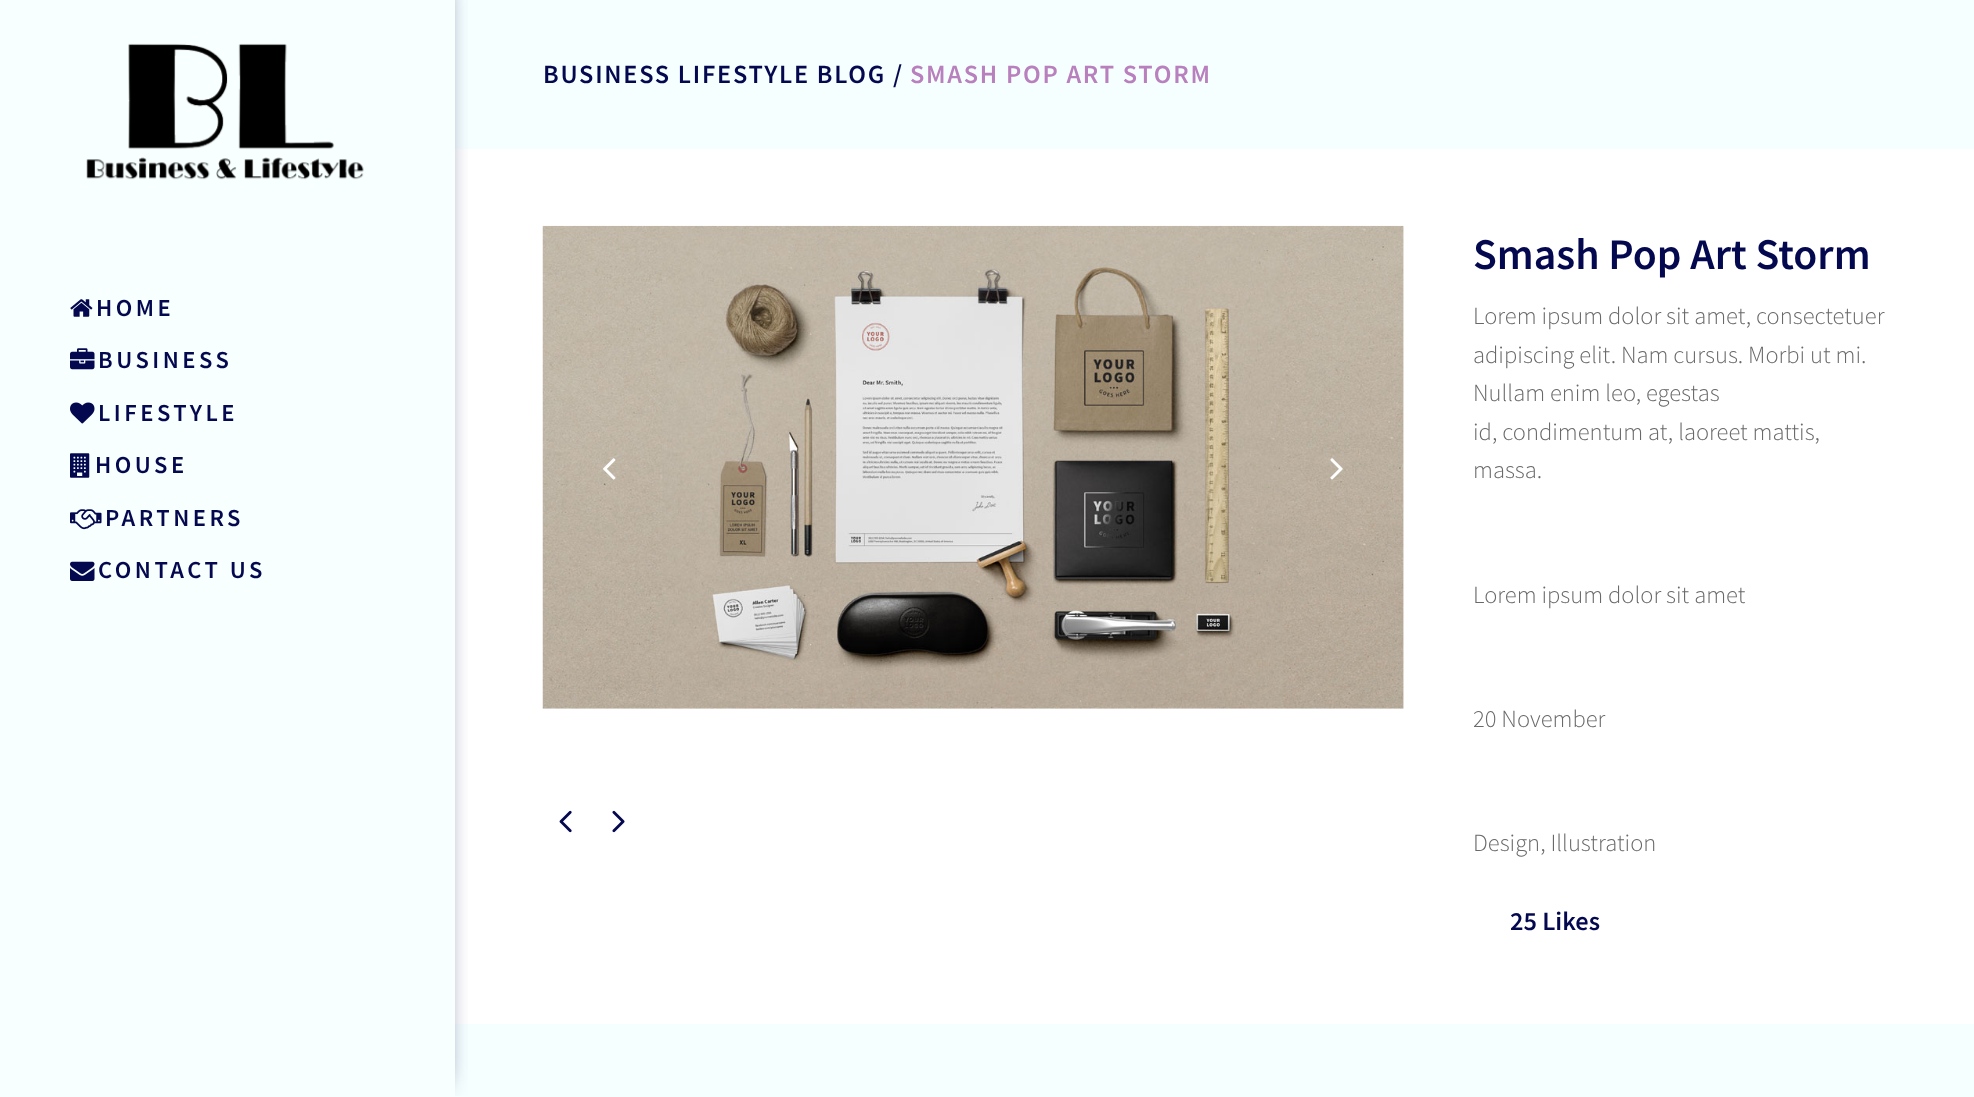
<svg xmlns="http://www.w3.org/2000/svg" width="1974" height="1097">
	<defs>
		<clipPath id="clip1"><rect x="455" y="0" width="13" height="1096" /></clipPath>
	</defs>
	<rect width="100%" height="100%" fill="#FFFFFF" />
	<rect x="0" y="0" width="455" height="1097" fill="#F7FFFF" />
	<rect x="455" y="0" width="1519" height="149" fill="#F6FFFF" />
	<rect x="455" y="1024" width="1519" height="73" fill="#F6FFFF" />
	<g clip-path="url(#clip1)">
		<rect x="-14" y="-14" width="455" height="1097" fill="#04084F" filter="blur(13px)" />
	</g>
	<image x="86" y="43" width="278" height="137" href="assets/img1.png" />
	<image x="70" y="299" width="23" height="18" href="assets/img2.png" />
	<text x="96" y="316" font-family="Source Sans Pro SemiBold" font-size="24.5" font-weight="600" letter-spacing="3.5" fill="#04084F">HOME</text>
	<image x="70" y="348" width="25" height="22" href="assets/img3.png" />
	<text x="98" y="368" font-family="Source Sans Pro SemiBold" font-size="24.5" font-weight="600" letter-spacing="3.5" fill="#04084F">BUSINESS</text>
	<image x="70" y="402" width="25" height="22" href="assets/img4.png" />
	<text x="98" y="421" font-family="Source Sans Pro SemiBold" font-size="24.5" font-weight="600" letter-spacing="3.5" fill="#04084F">LIFESTYLE</text>
	<image x="70" y="453" width="20" height="25" href="assets/img5.png" />
	<text x="95" y="473" font-family="Source Sans Pro SemiBold" font-size="24.5" font-weight="600" letter-spacing="3.5" fill="#04084F">HOUSE</text>
	<image x="70" y="509" width="32" height="21" href="assets/img6.png" />
	<text x="105" y="526" font-family="Source Sans Pro SemiBold" font-size="24.5" font-weight="600" letter-spacing="3.5" fill="#04084F">PARTNERS</text>
	<image x="70" y="561" width="25" height="20" href="assets/img7.png" />
	<text x="98" y="578" font-family="Source Sans Pro SemiBold" font-size="24.5" font-weight="600" letter-spacing="3.5" fill="#04084F">CONTACT US</text>
	<text x="543" y="83" font-family="Source Sans Pro SemiBold" font-size="26.25" font-weight="600" letter-spacing="1.75" fill="#04084F">BUSINESS LIFESTYLE BLOG /</text>
	<text x="910" y="83" font-family="Source Sans Pro SemiBold" font-size="26.25" font-weight="600" letter-spacing="1.75" fill="#B880BD">SMASH POP ART STORM</text>
	<image x="542" y="225" width="862" height="484" href="assets/img8.png" />
	<image x="1403" y="226" width="1" height="483" href="assets/img9.png" />
	<image x="603" y="458" width="13" height="22" href="assets/img10.png" />
	<image x="1330" y="458" width="13" height="22" href="assets/img11.png" />
	<image x="559" y="810" width="13" height="23" href="assets/img12.png" />
	<image x="612" y="810" width="13" height="23" href="assets/img13.png" />
	<text x="1473" y="269" font-family="Source Sans Pro SemiBold" font-size="43.75" font-weight="600" fill="#04084F">Smash Pop Art Storm</text>
	<g font-family="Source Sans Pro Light" font-size="24.5" font-weight="300" fill="#696969">
		<text x="1473" y="324">Lorem ipsum dolor sit amet, consectetuer</text>
		<text x="1473" y="363">adipiscing elit. Nam cursus. Morbi ut mi.</text>
		<text x="1473" y="401">Nullam enim leo, egestas</text>
		<text x="1473" y="440">id, condimentum at, laoreet mattis,</text>
		<text x="1473" y="478">massa.</text>
		<text x="1473" y="603">Lorem ipsum dolor sit amet</text>
		<text x="1473" y="727">20 November</text>
		<text x="1473" y="851">Design, Illustration</text>
	</g>
	<text x="1510" y="930" font-family="Source Sans Pro SemiBold" font-size="26.25" font-weight="600" fill="#04084F">25 Likes</text>
</svg>
